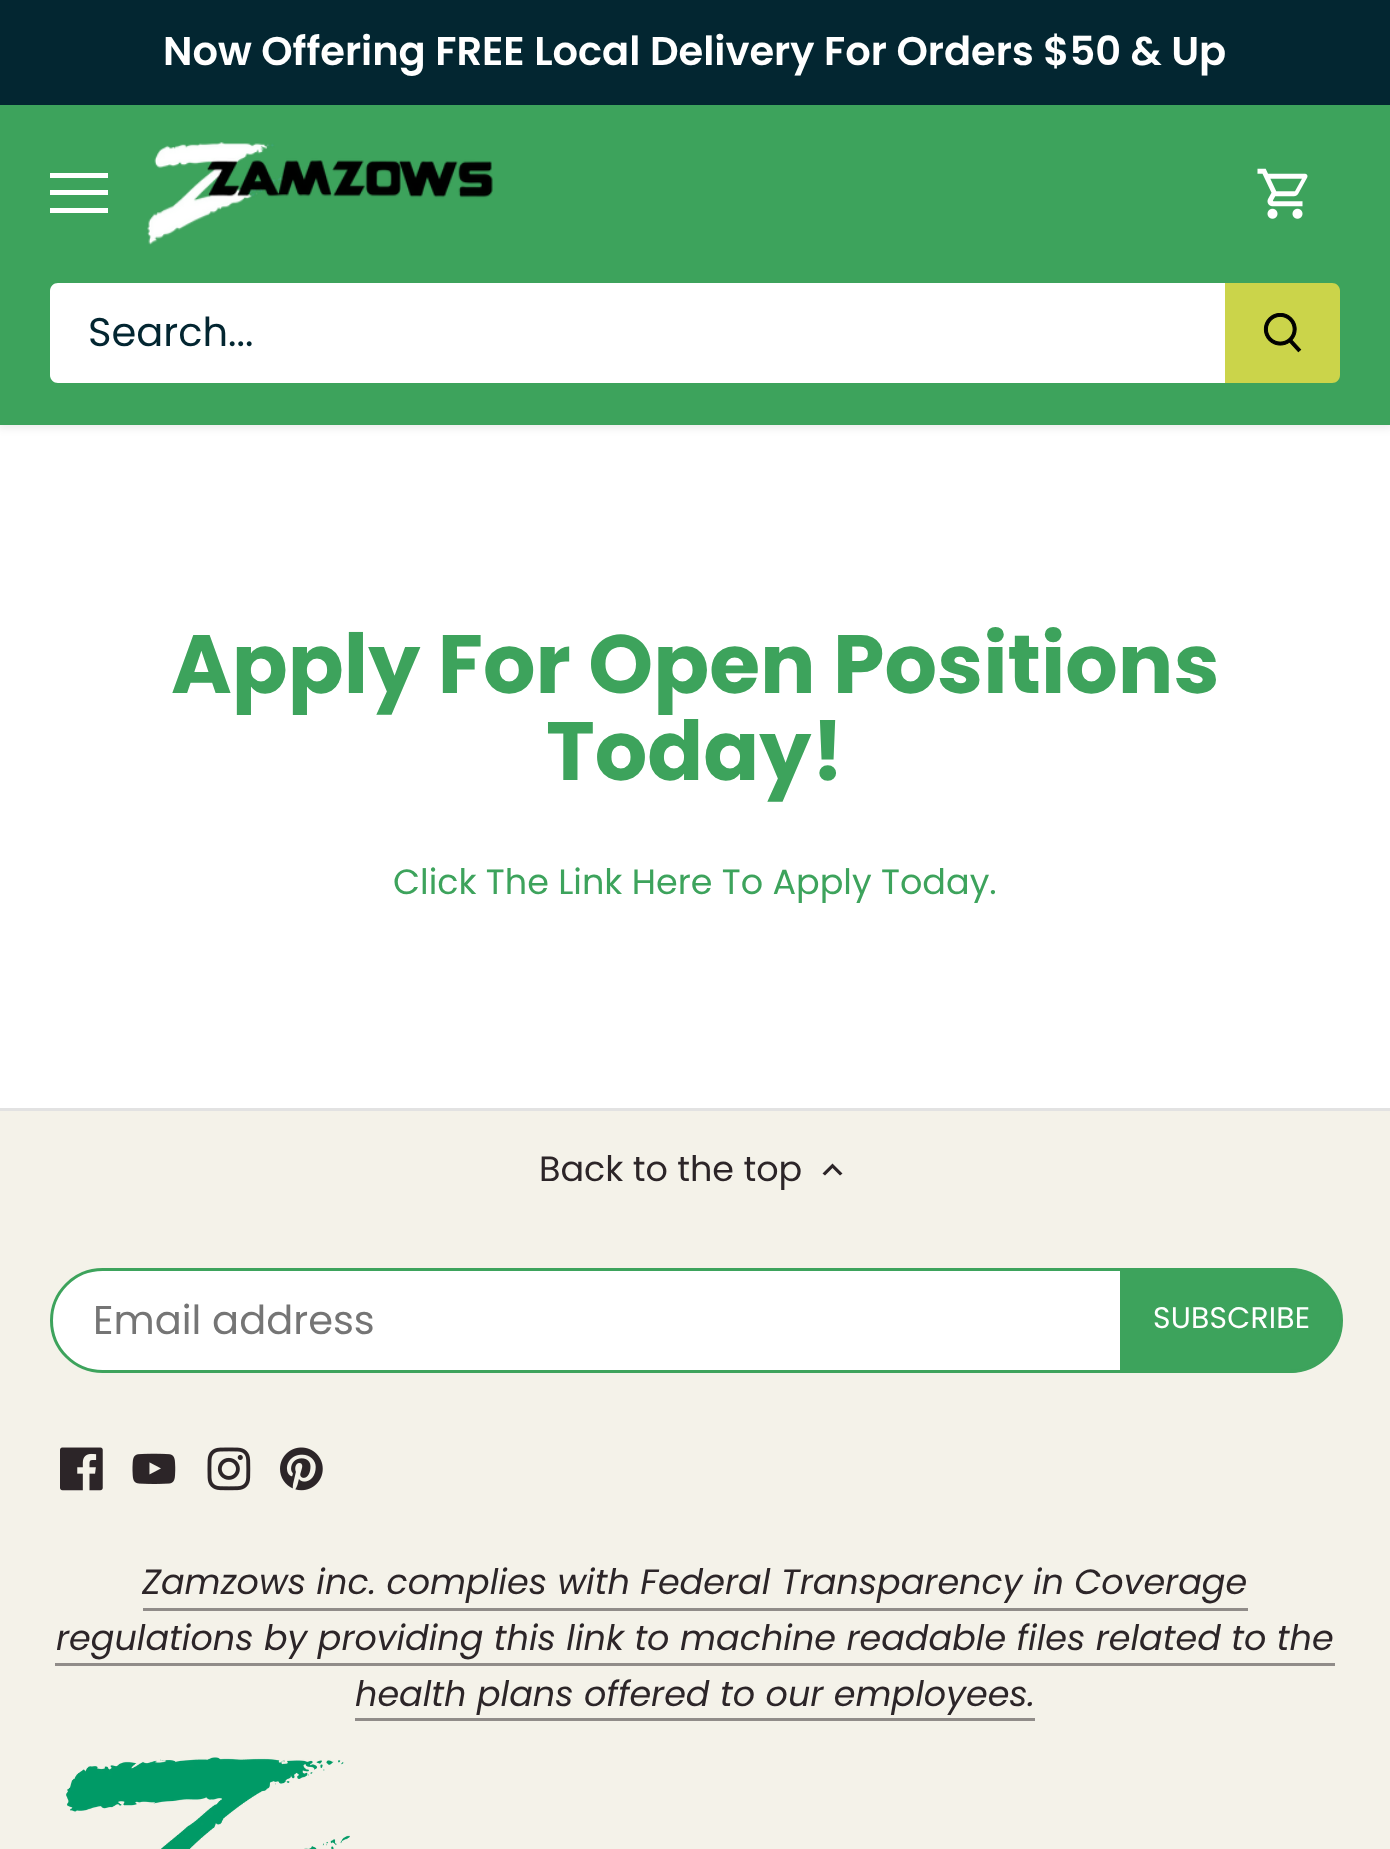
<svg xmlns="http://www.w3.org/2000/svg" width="1390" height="1849">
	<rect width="100%" height="100%" fill="#F4F2E9" />
	<rect x="0" y="425" width="1390" height="683" fill="#FFFFFF" />
	<rect x="-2" y="103" width="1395" height="325" fill="#000000" fill-opacity="0.08" filter="blur(4px)" />
	<rect x="0" y="0" width="1390" height="105" fill="#032631" />
	<text x="163" y="65" font-family="Poppins" font-size="40" font-weight="600" fill="#FFFFFF">Now Offering FREE Local Delivery For Orders $50 &amp; Up</text>
	<rect x="0" y="105" width="1390" height="320" fill="#3DA35C" />
	<rect x="50" y="173" width="58" height="5" fill="#FFFFFF" />
	<rect x="50" y="190" width="58" height="5" fill="#FFFFFF" />
	<rect x="50" y="208" width="58" height="5" fill="#FFFFFF" />
	<image x="147" y="142" width="346" height="103" href="assets/img1.png" />
	<image x="1257" y="168" width="51" height="51" href="assets/img2.png" />
	<path d="M58 283H1228V383H58C53.5 383 50 379.5 50 375V291C50 286.5 53.5 283 58 283Z" fill="#FFFFFF" />
	<text x="88" y="346" font-family="Poppins" font-size="40" fill="#032631">Search...</text>
	<path d="M1225 283H1332C1336.5 283 1340 286.5 1340 291V375C1340 379.5 1336.5 383 1332 383H1225Z" fill="#CBD44A" />
	<image x="1263" y="313" width="39" height="40" href="assets/img3.png" />
	<g font-family="Poppins" font-size="82.5" font-weight="700" fill="#3DA35C">
		<text x="171" y="693">Apply For Open Positions</text>
		<text x="546" y="780">Today!</text>
	</g>
	<text x="393" y="894" font-family="Poppins" font-size="35" fill="#3DA35C">Click The Link Here To Apply Today.</text>
	<rect x="0" y="1108" width="1390" height="3" fill="#E2E2E2" />
	<text x="539" y="1181" font-family="Poppins" font-size="35" fill="#2C2528">Back to the top</text>
	<path d="M825 1175.5L832.5 1168L840 1175.5L842.5 1173.5L832.5 1163.5L822.5 1173.5Z" fill="#2C2528" />
	<rect x="51.5" y="1269.5" width="1287" height="102" rx="51" fill="#FFFFFF" stroke="#3DA35C" stroke-width="3" />
	<text x="93" y="1334" font-family="Poppins" font-size="40" fill="#757575">Email address</text>
	<path d="M1121.5 1269.5H1290.5C1318.5 1269.5 1341.5 1292.5 1341.5 1320.5C1341.5 1348.5 1318.5 1371.5 1290.5 1371.5H1121.5Z" fill="#3DA35C" stroke="#3DA35C" stroke-width="3" />
	<text x="1153" y="1328" font-family="Poppins" font-size="29.75" letter-spacing="0.25" fill="#FFFFFF">SUBSCRIBE</text>
	<image x="60" y="1447" width="43" height="44" href="assets/img4.png" />
	<image x="132" y="1453" width="44" height="31" href="assets/img5.png" />
	<image x="207" y="1447" width="44" height="44" href="assets/img6.png" />
	<image x="280" y="1447" width="43" height="44" href="assets/img7.png" />
	<text x="142" y="1594" font-family="Poppins" font-size="35" font-style="italic" fill="#2C2528">Zamzows inc. complies with Federal Transparency in Coverage</text>
	<rect x="143" y="1608" width="1105" height="3" fill="#908C89" />
	<text x="56" y="1650" font-family="Poppins" font-size="35" font-style="italic" fill="#2C2528">regulations by providing this link to machine readable files related to the</text>
	<rect x="55" y="1663" width="1280" height="3" fill="#908C89" />
	<text x="355" y="1706" font-family="Poppins" font-size="35" font-style="italic" fill="#2C2528">health plans offered to our employees.</text>
	<rect x="355" y="1718" width="680" height="3" fill="#908C89" />
	<image x="66" y="1757" width="284" height="92" href="assets/img8.png" />
</svg>
